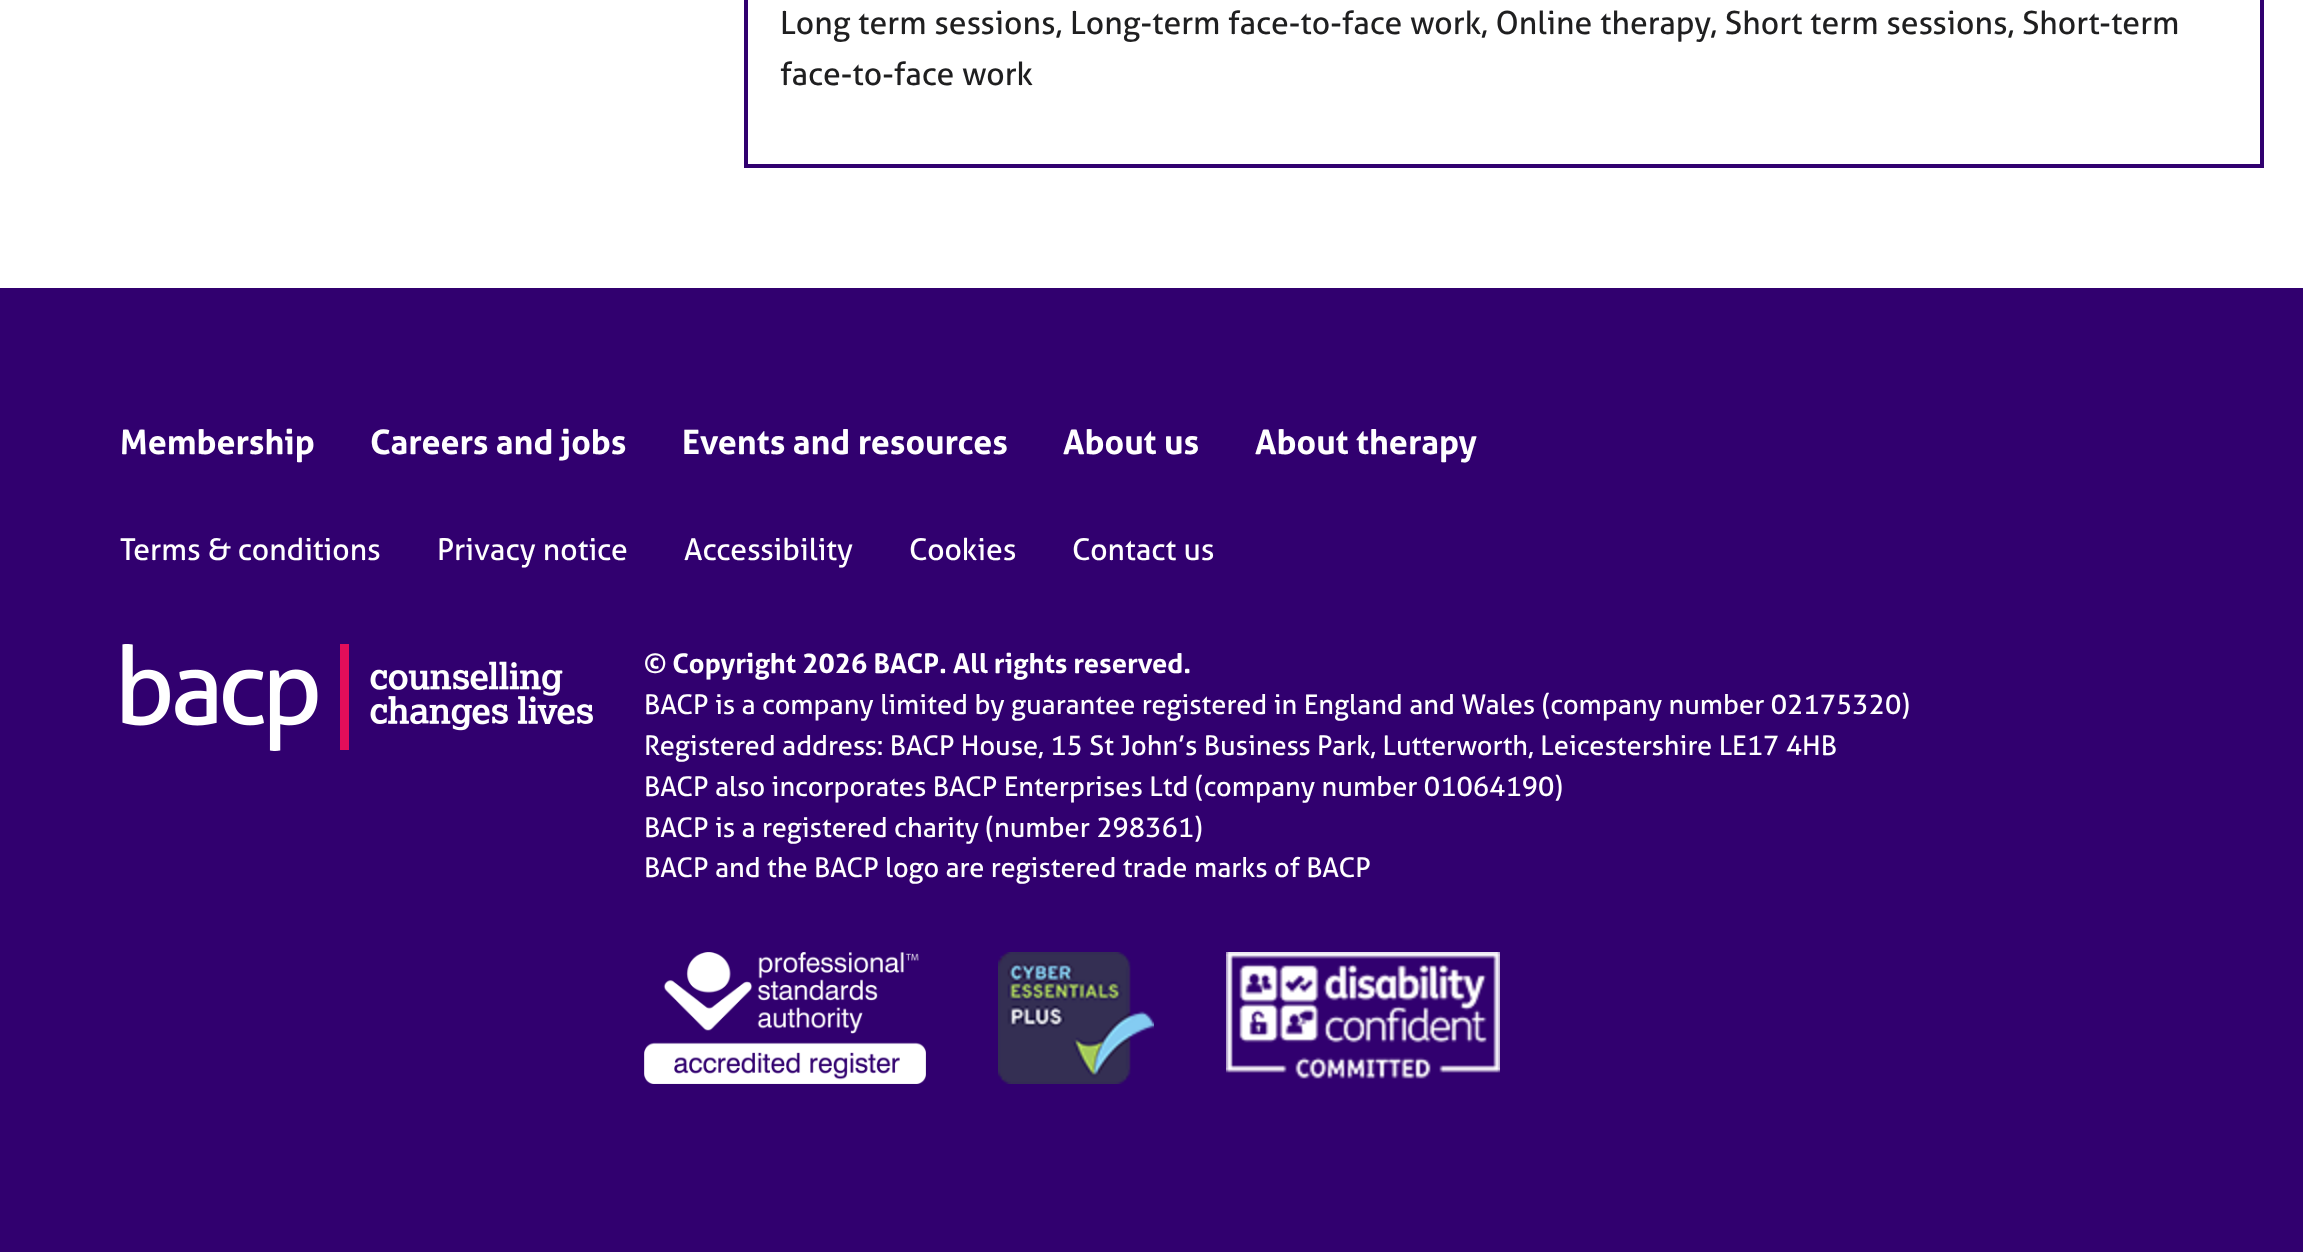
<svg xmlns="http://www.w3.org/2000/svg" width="2303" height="1252">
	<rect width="100%" height="100%" fill="#FFFFFF" />
	<rect x="746" y="-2" width="1516" height="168" fill="none" stroke="#31006F" stroke-width="4" />
	<g font-family="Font" font-size="32" fill="#1F1F20">
		<text x="780" y="34">Long term sessions, Long-term face-to-face work, Online therapy, Short term sessions, Short-term</text>
		<text x="780" y="85">face-to-face work</text>
	</g>
	<rect x="0" y="288" width="2303" height="964" fill="#31006F" />
	<g font-family="Font" font-size="33.9" font-weight="700" fill="#FFFFFF">
		<text x="120" y="454">Membership</text>
		<text x="370" y="454">Careers and jobs</text>
		<text x="682" y="454">Events and resources</text>
		<text x="1063" y="454">About us</text>
		<text x="1255" y="454">About therapy</text>
	</g>
	<g font-family="Font" font-size="30.1" fill="#FFFFFF">
		<text x="120" y="560">Terms &amp; conditions</text>
		<text x="437" y="560">Privacy notice</text>
		<text x="684" y="560">Accessibility</text>
		<text x="909" y="560">Cookies</text>
		<text x="1072" y="560">Contact us</text>
	</g>
	<image x="122" y="644" width="471" height="107" href="assets/img1.png" />
	<text x="644" y="673" font-family="Font" font-size="27.2" font-weight="700" fill="#FFFFFF">© Copyright 2026 BACP. All rights reserved.</text>
	<g font-family="Font" font-size="27.2" fill="#FFFFFF">
		<text x="644" y="714">BACP is a company limited by guarantee registered in England and Wales (company number 02175320)</text>
		<text x="644" y="755">Registered address: BACP House, 15 St John’s Business Park, Lutterworth, Leicestershire LE17 4HB</text>
		<text x="644" y="796">BACP also incorporates BACP Enterprises Ltd (company number 01064190)</text>
		<text x="644" y="837">BACP is a registered charity (number 298361)</text>
		<text x="644" y="877">BACP and the BACP logo are registered trade marks of BACP</text>
	</g>
	<image x="644" y="952" width="282" height="132" href="assets/img2.png" />
	<image x="998" y="952" width="156" height="132" href="assets/img3.png" />
	<image x="1226" y="952" width="274" height="127" href="assets/img4.png" />
</svg>
